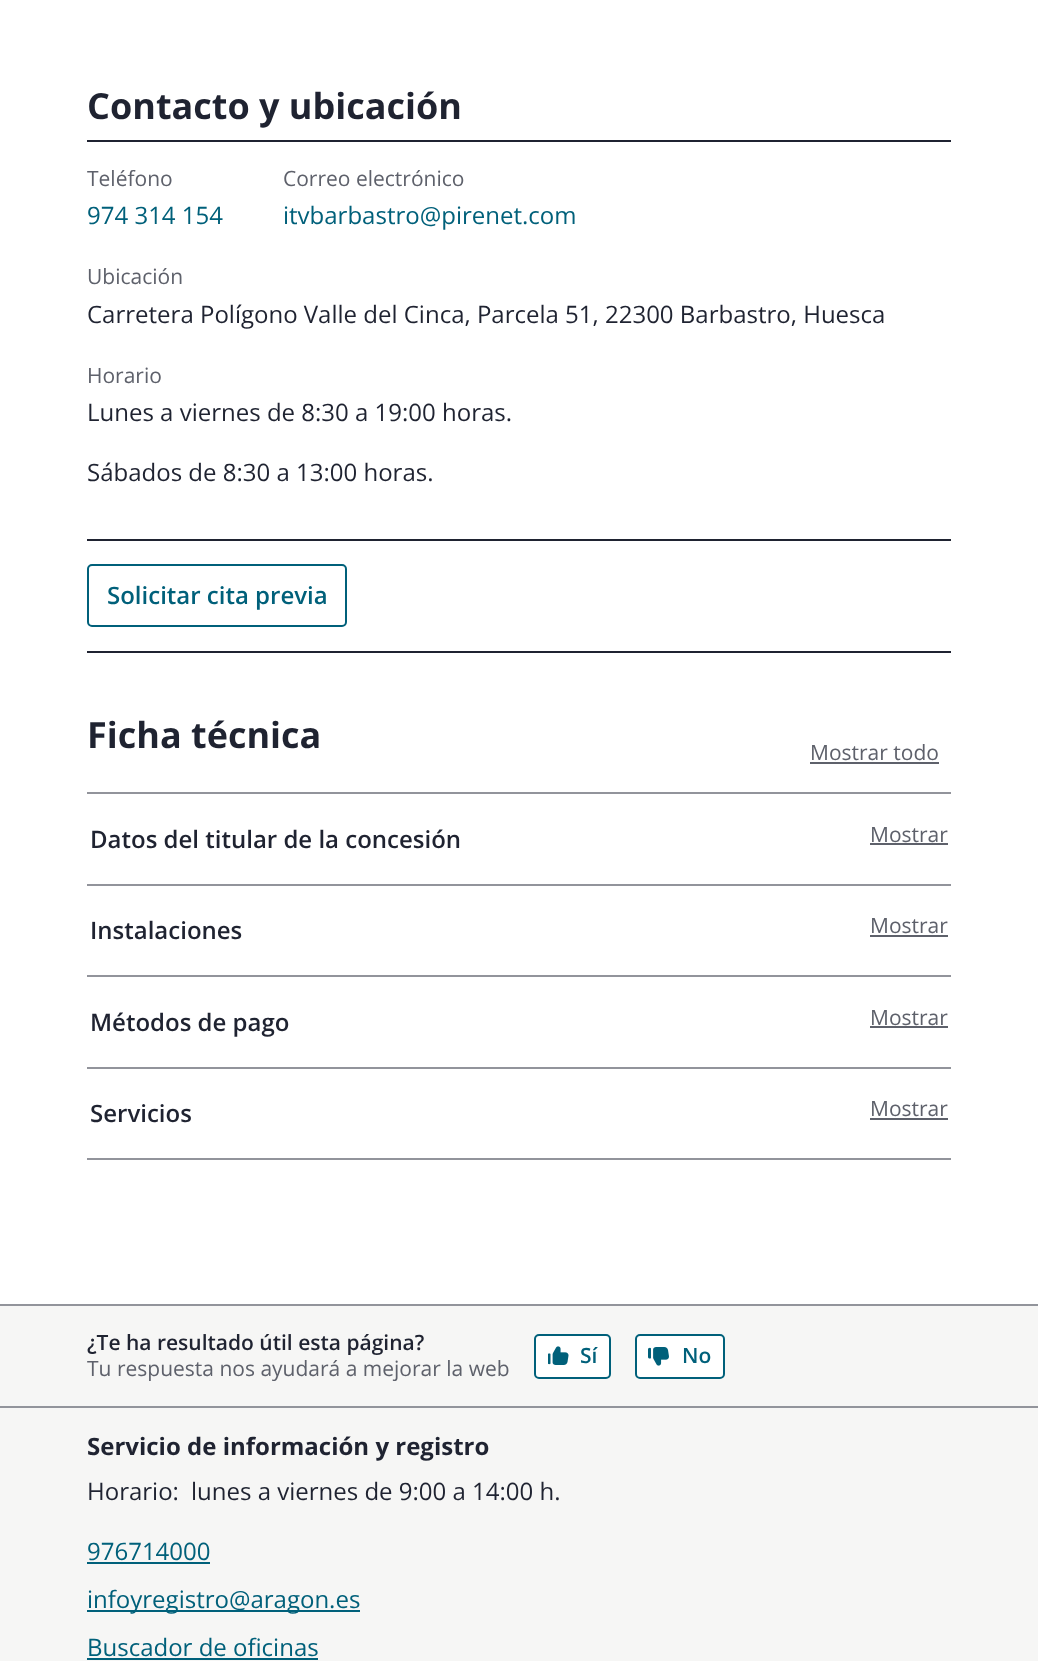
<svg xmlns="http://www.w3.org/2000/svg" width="1038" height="1661">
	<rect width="100%" height="100%" fill="#FFFFFF" />
	<rect x="87" y="140" width="864" height="2" fill="#1F2331" />
	<text x="87" y="119" font-family="Open Sans" font-size="36" font-weight="700" fill="#1F2331">Contacto y ubicación</text>
	<text x="87" y="186" font-family="Open Sans" font-size="21" fill="#5E616B">Teléfono</text>
	<text x="87" y="224" font-family="Open Sans" font-size="24" fill="#00607A">974 314 154</text>
	<text x="283" y="186" font-family="Open Sans" font-size="21" fill="#5E616B">Correo electrónico</text>
	<text x="283" y="224" font-family="Open Sans" font-size="24" fill="#00607A">itvbarbastro@pirenet.com</text>
	<text x="87" y="284" font-family="Open Sans" font-size="21" fill="#5E616B">Ubicación</text>
	<text x="87" y="323" font-family="Open Sans" font-size="24" fill="#1F2331">Carretera Polígono Valle del Cinca, Parcela 51, 22300 Barbastro, Huesca</text>
	<rect x="87" y="539" width="864" height="2" fill="#1F2331" />
	<text x="87" y="383" font-family="Open Sans" font-size="21" fill="#5E616B">Horario</text>
	<g font-family="Open Sans" font-size="24" fill="#1F2331">
		<text x="87" y="421">Lunes a viernes de 8:30 a 19:00 horas.</text>
		<text x="87" y="481">Sábados de 8:30 a 13:00 horas.</text>
	</g>
	<rect x="87" y="651" width="864" height="2" fill="#1F2331" />
	<rect x="88" y="565" width="258" height="61" rx="4" fill="none" stroke="#00607A" stroke-width="2" />
	<text x="107" y="604" font-family="Open Sans" font-size="24" font-weight="600" fill="#00607A">Solicitar cita previa</text>
	<rect x="87" y="792" width="864" height="2" fill="#92949B" />
	<text x="87" y="748" font-family="Open Sans" font-size="36" font-weight="700" fill="#1F2331">Ficha técnica</text>
	<text x="810" y="760" font-family="Open Sans" font-size="21" fill="#5E616B">Mostrar todo</text>
	<rect x="810" y="762" width="129" height="2" fill="#5E616B" />
	<rect x="87" y="884" width="864" height="2" fill="#92949B" />
	<text x="90" y="848" font-family="Open Sans" font-size="24" font-weight="600" fill="#1F2331">Datos del titular de la concesión</text>
	<text x="870" y="842" font-family="Open Sans" font-size="21" fill="#5E616B">Mostrar</text>
	<rect x="870" y="843" width="78" height="2" fill="#5E616B" />
	<rect x="87" y="975" width="864" height="2" fill="#92949B" />
	<text x="90" y="939" font-family="Open Sans" font-size="24" font-weight="600" fill="#1F2331">Instalaciones</text>
	<text x="870" y="933" font-family="Open Sans" font-size="21" fill="#5E616B">Mostrar</text>
	<rect x="870" y="935" width="78" height="2" fill="#5E616B" />
	<rect x="87" y="1067" width="864" height="2" fill="#92949B" />
	<text x="90" y="1031" font-family="Open Sans" font-size="24" font-weight="600" fill="#1F2331">Métodos de pago</text>
	<text x="870" y="1025" font-family="Open Sans" font-size="21" fill="#5E616B">Mostrar</text>
	<rect x="870" y="1026" width="78" height="2" fill="#5E616B" />
	<rect x="87" y="1158" width="864" height="2" fill="#92949B" />
	<text x="90" y="1122" font-family="Open Sans" font-size="24" font-weight="600" fill="#1F2331">Servicios</text>
	<text x="870" y="1116" font-family="Open Sans" font-size="21" fill="#5E616B">Mostrar</text>
	<rect x="870" y="1118" width="78" height="2" fill="#5E616B" />
	<rect x="0" y="1306" width="1038" height="100" fill="#F6F6F5" />
	<rect x="0" y="1304" width="1038" height="2" fill="#92949B" />
	<text x="87" y="1350" font-family="Open Sans" font-size="21" font-weight="600" fill="#1F2331">¿Te ha resultado útil esta página?</text>
	<text x="87" y="1376" font-family="Open Sans" font-size="21" fill="#5E616B">Tu respuesta nos ayudará a mejorar la web</text>
	<rect x="535" y="1335" width="75" height="43" rx="4" fill="#FFFFFF" stroke="#00607A" stroke-width="2" />
	<image x="548" y="1346" width="21" height="19" href="assets/img1.png" />
	<text x="580" y="1363" font-family="Open Sans" font-size="21" font-weight="600" fill="#00607A">Sí</text>
	<rect x="636" y="1335" width="88" height="43" rx="4" fill="#FFFFFF" stroke="#00607A" stroke-width="2" />
	<image x="648" y="1347" width="21" height="19" href="assets/img2.png" />
	<text x="682" y="1363" font-family="Open Sans" font-size="21" font-weight="600" fill="#00607A">No</text>
	<rect x="0" y="1408" width="1038" height="253" fill="#F6F6F5" />
	<rect x="0" y="1406" width="1038" height="2" fill="#92949B" />
	<text x="87" y="1455" font-family="Open Sans" font-size="24" font-weight="700" fill="#1F2331">Servicio de información y registro</text>
	<g font-family="Open Sans" font-size="24" fill="#1F2331">
		<text x="87" y="1500">Horario:</text>
		<text x="191" y="1500">lunes a viernes de 9:00 a 14:00 h.</text>
	</g>
	<text x="87" y="1560" font-family="Open Sans" font-size="24" fill="#00607A">976714000</text>
	<rect x="87" y="1562" width="123" height="2" fill="#00607A" />
	<rect x="87" y="1610" width="273" height="2" fill="#00607A" />
	<g font-family="Open Sans" font-size="24" fill="#00607A">
		<text x="87" y="1608">infoyregistro@aragon.es</text>
		<text x="87" y="1656">Buscador de oficinas</text>
	</g>
	<rect x="87" y="1658" width="231" height="2" fill="#00607A" />
</svg>
